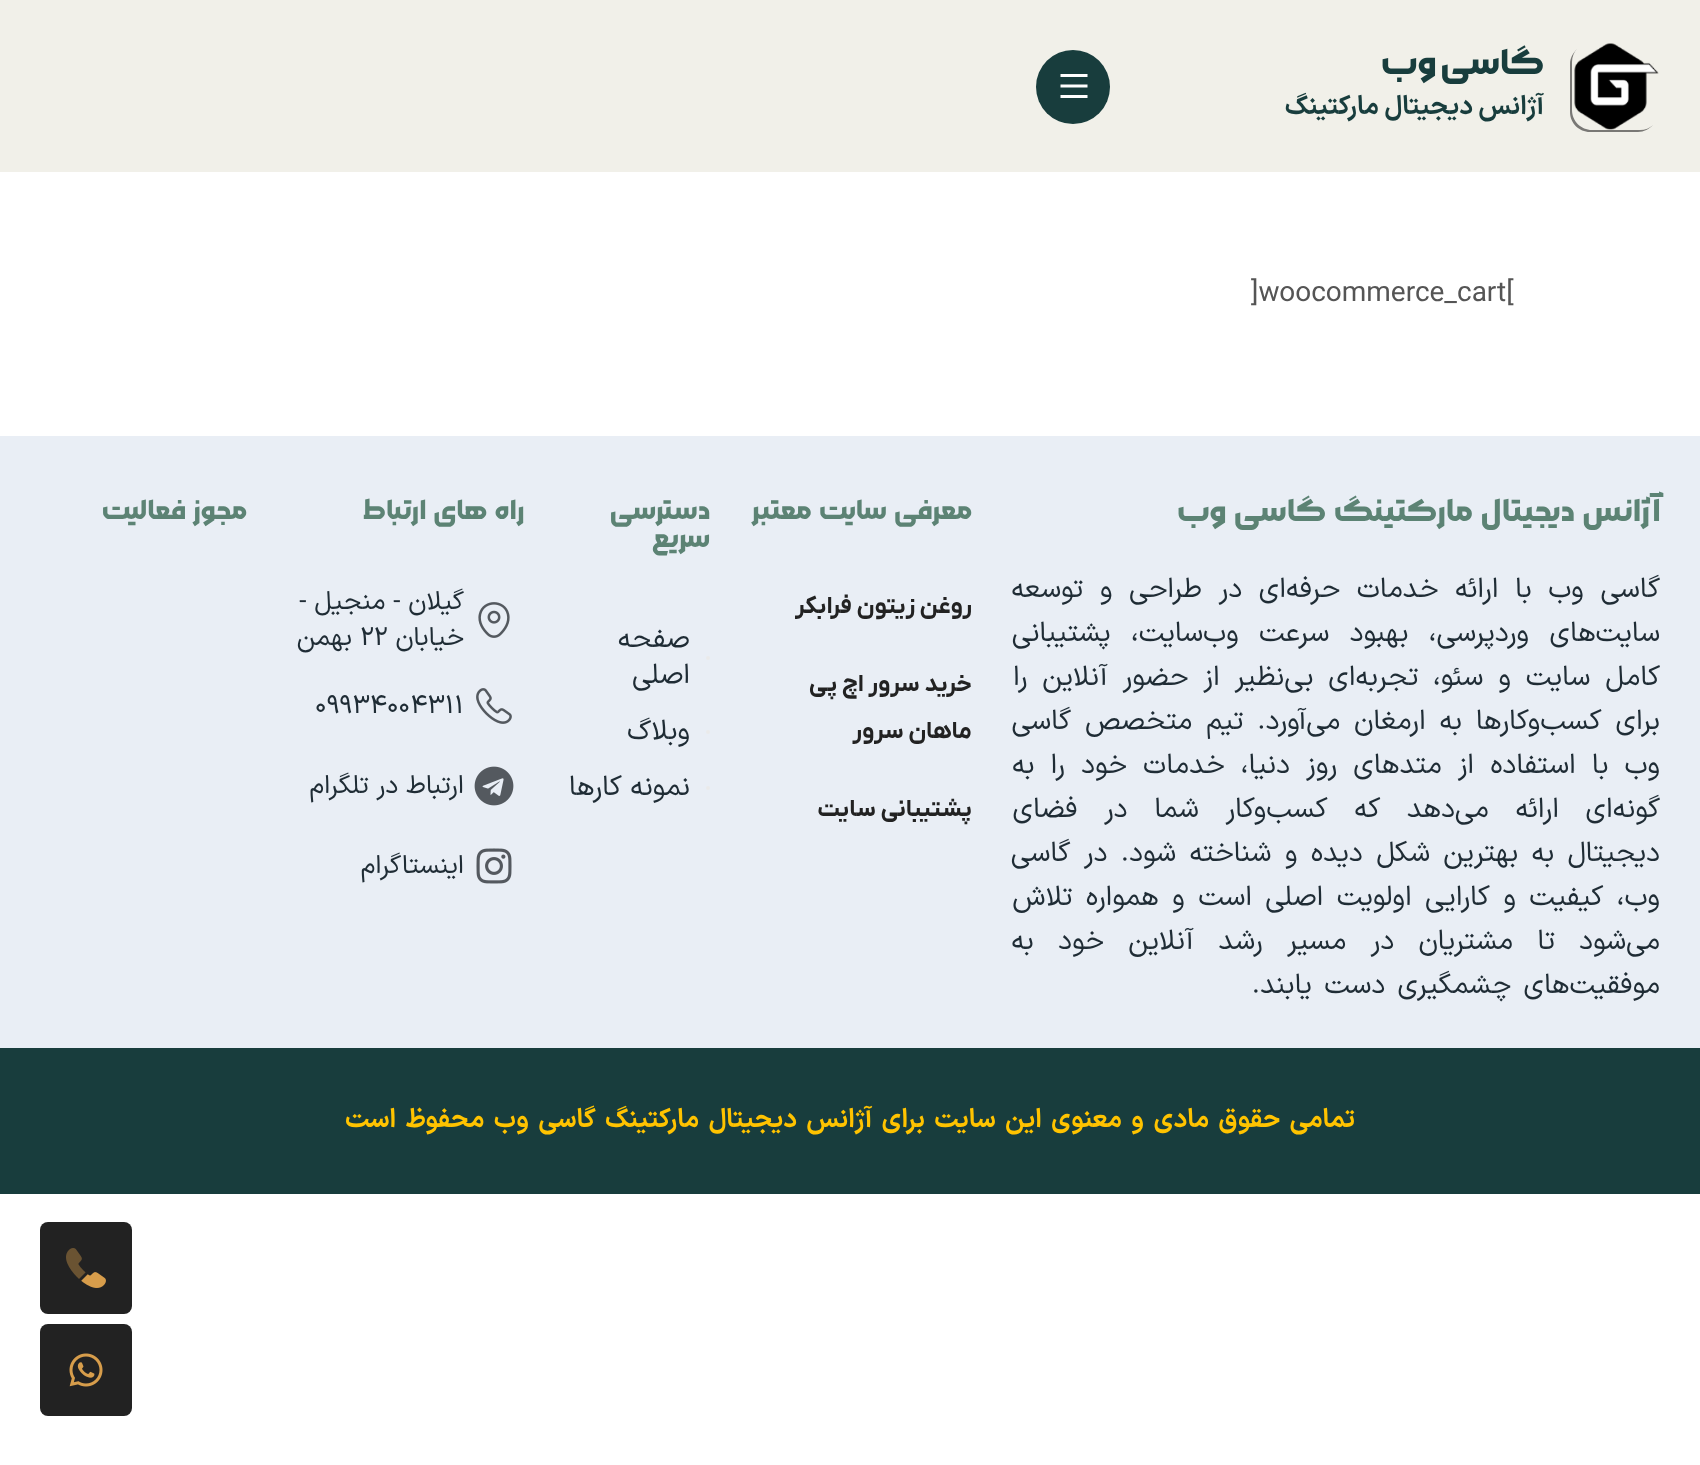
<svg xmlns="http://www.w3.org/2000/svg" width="1700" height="1465">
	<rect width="100%" height="100%" fill="#FFFFFF" />
	<rect x="0" y="0" width="1700" height="172" fill="#F1F0E9" />
	<path d="M1577 49C1573 53 1570 58 1570 64V112C1570 123 1579 132 1590 132H1638C1644 132 1649 129 1653 125C1650 128 1645 130 1640 130H1592C1581 130 1572 121 1572 110V62C1572 57 1574 52 1577 49Z" fill="#797875" />
	<image x="1574" y="43" width="85" height="87" href="assets/img1.png" />
	<text x="1544" y="74" font-family="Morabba" font-size="36" font-weight="700" direction="rtl" fill="#183D3D">گاسی وب</text>
	<text x="1544" y="114" font-family="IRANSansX" font-size="26" font-weight="700" direction="rtl" fill="#183D3D">آژانس دیجیتال مارکتینگ</text>
	<circle cx="1073" cy="87" r="37" fill="#183D3D" />
	<image x="1060" y="74" width="28" height="24" href="assets/img2.png" />
	<text x="1251" y="301" font-family="IRANSansX" font-size="28" fill="#555555">]woocommerce_cart[</text>
	<rect x="0" y="436" width="1700" height="612" fill="#E9EEF5" />
	<text x="1660" y="521" word-spacing="4" font-family="Morabba" font-size="32" font-weight="700" direction="rtl" fill="#5C8374">آژانس دیجیتال مارکتینگ گاسی وب</text>
	<g font-family="IRANSansX" font-size="28" direction="rtl" fill="#1F2C35">
		<text x="1660" y="597" word-spacing="8.25">گاسی وب با ارائه خدمات حرفه‌ای در طراحی و توسعه</text>
		<text x="1660" y="641" word-spacing="12">سایت‌های وردپرسی، بهبود سرعت وب‌سایت، پشتیبانی</text>
		<text x="1660" y="685" word-spacing="6.5">کامل سایت و سئو، تجربه‌ای بی‌نظیر از حضور آنلاین را</text>
		<text x="1660" y="729" word-spacing="5.5">برای کسب‌وکارها به ارمغان می‌آورد. تیم متخصص گاسی</text>
		<text x="1660" y="773" word-spacing="7.75">وب با استفاده از متدهای روز دنیا، خدمات خود را به</text>
		<text x="1660" y="817" word-spacing="18.25">گونه‌ای ارائه می‌دهد که کسب‌وکار شما در فضای</text>
		<text x="1660" y="861" word-spacing="5">دیجیتال به بهترین شکل دیده و شناخته شود. در گاسی</text>
		<text x="1660" y="905" word-spacing="5">وب، کیفیت و کارایی اولویت اصلی است و همواره تلاش</text>
		<text x="1660" y="949" word-spacing="16">می‌شود تا مشتریان در مسیر رشد آنلاین خود به</text>
		<text x="1660" y="993" word-spacing="4">موفقیت‌های چشمگیری دست یابند.</text>
	</g>
	<text x="972" y="519" word-spacing="4" font-family="Morabba" font-size="28" font-weight="700" direction="rtl" fill="#5C8374">معرفی سایت معتبر</text>
	<g font-family="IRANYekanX" font-size="24" font-weight="700" direction="rtl" fill="#222222">
		<text x="972" y="613">روغن زیتون فرابکر</text>
		<text x="972" y="691">خرید سرور اچ پی</text>
		<text x="972" y="738">ماهان سرور</text>
		<text x="972" y="816">پشتیبانی سایت</text>
	</g>
	<g font-family="Morabba" font-size="28" font-weight="700" direction="rtl" fill="#5C8374">
		<text x="710" y="519">دسترسی</text>
		<text x="710" y="547">سریع</text>
	</g>
	<text x="690" y="647" font-family="IRANSansX" font-size="28" direction="rtl" fill="#1F2C35">صفحه</text>
	<circle cx="708" cy="658" r="2" fill="#EAEAEA" />
	<text x="690" y="683" font-family="IRANSansX" font-size="28" direction="rtl" fill="#1F2C35">اصلی</text>
	<circle cx="708" cy="732" r="2" fill="#EAEAEA" />
	<text x="690" y="739" font-family="IRANSansX" font-size="28" direction="rtl" fill="#1F2C35">وبلاگ</text>
	<circle cx="708" cy="788" r="2" fill="#EAEAEA" />
	<text x="690" y="795" font-family="IRANSansX" font-size="28" direction="rtl" fill="#1F2C35">نمونه کارها</text>
	<text x="524" y="519" word-spacing="4" font-family="Morabba" font-size="28" font-weight="700" direction="rtl" fill="#5C8374">راه های ارتباط</text>
	<image x="478" y="602" width="32" height="36" href="assets/img3.png" />
	<g font-family="IRANSansX" font-size="26" direction="rtl" fill="#1F2C35">
		<text x="464" y="609">گیلان - منجیل -</text>
		<text x="464" y="645">خیابان</text>
	</g>
	<text x="360" y="645" font-family="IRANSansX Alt" font-size="26" fill="#1F2C35">22</text>
	<text x="352" y="645" font-family="IRANSansX" font-size="26" direction="rtl" fill="#1F2C35">بهمن</text>
	<image x="476" y="688" width="36" height="36" href="assets/img4.png" />
	<text x="315" y="713" font-family="IRANSansX Alt" font-size="26" fill="#1F2C35">09934004311</text>
	<image x="474" y="766" width="40" height="40" href="assets/img5.png" />
	<text x="464" y="793" font-family="IRANSansX" font-size="26" direction="rtl" fill="#1F2C35">ارتباط در تلگرام</text>
	<image x="476" y="848" width="36" height="36" href="assets/img6.png" />
	<text x="464" y="873" font-family="IRANSansX" font-size="26" direction="rtl" fill="#1F2C35">اینستاگرام</text>
	<text x="247" y="519" word-spacing="4" font-family="Morabba" font-size="28" font-weight="700" direction="rtl" fill="#5C8374">مجوز فعالیت</text>
	<rect x="0" y="1048" width="1700" height="146" fill="#183D3D" />
	<text x="1355" y="1127" word-spacing="4" font-family="IRANSansX" font-size="26" font-weight="700" direction="rtl" fill="#FFC300">تمامی حقوق مادی و معنوی این سایت برای آژانس دیجیتال مارکتینگ گاسی وب محفوظ است</text>
	<rect x="40" y="1222" width="92" height="92" rx="8" fill="#222222" />
	<image x="66" y="1248" width="40" height="40" href="assets/img7.png" />
	<rect x="40" y="1324" width="92" height="92" rx="8" fill="#222222" />
	<image x="69" y="1353" width="34" height="34" href="assets/img8.png" />
</svg>
